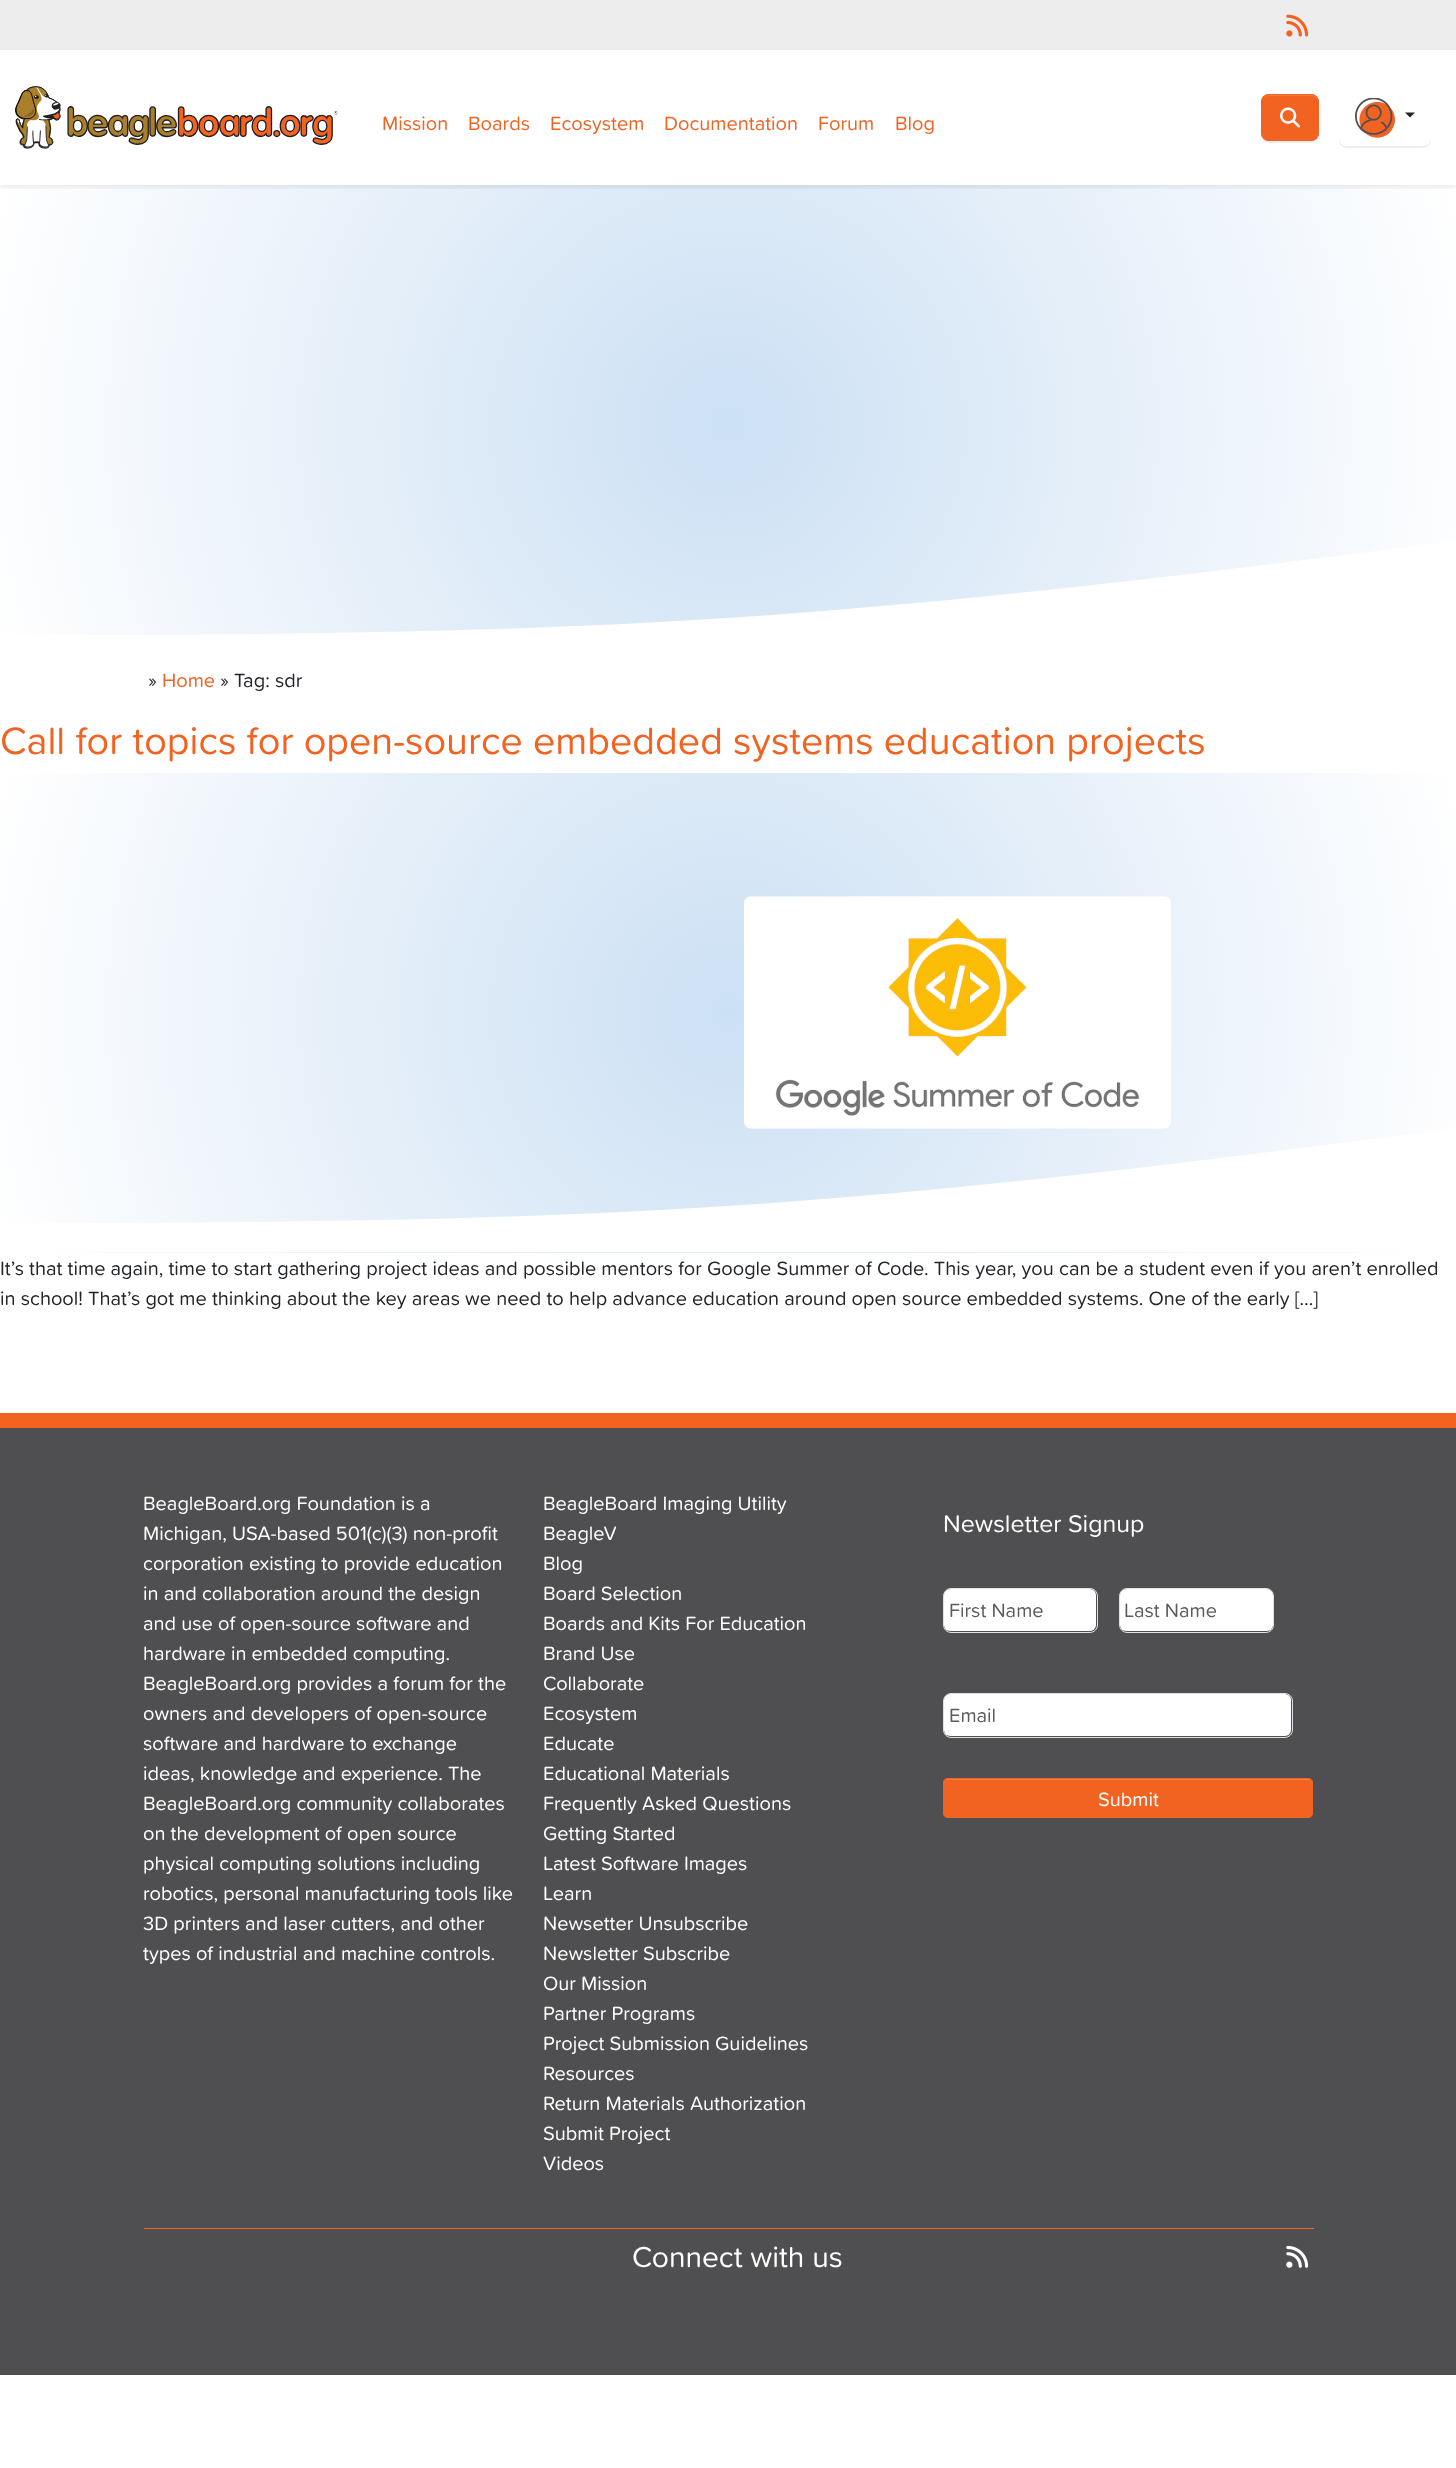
<svg xmlns="http://www.w3.org/2000/svg" width="1456" height="2468">
	<defs>
		<radialGradient id="g1" gradientUnits="userSpaceOnUse" cx="728" cy="425" r="767"><stop offset="0" stop-color="#CCE0F4" /><stop offset="1" stop-color="#FFFFFF" /></radialGradient>
		<clipPath id="clip1"><rect x="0" y="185" width="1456" height="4" /></clipPath>
		<clipPath id="clip2"><path d="M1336 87H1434V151H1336ZM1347 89H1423C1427.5 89 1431 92.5 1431 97V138C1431 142.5 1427.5 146 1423 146H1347C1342.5 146 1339 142.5 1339 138V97C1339 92.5 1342.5 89 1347 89Z" clip-rule="evenodd" /></clipPath>
		<radialGradient id="g2" gradientUnits="userSpaceOnUse" cx="728" cy="1013" r="767"><stop offset="0" stop-color="#CCE0F4" /><stop offset="1" stop-color="#FFFFFF" /></radialGradient>
	</defs>
	<rect width="100%" height="100%" fill="#FFFFFF" />
	<rect x="0" y="0" width="1456" height="50" fill="#EDEDEE" />
	<image x="1286" y="14" width="23" height="23" href="assets/img1.png" />
	<rect x="0" y="185" width="1456" height="450" fill="url(#g1)" />
	<g clip-path="url(#clip1)">
		<rect x="0" y="53" width="1456" height="135" fill="#000000" fill-opacity="0.07" filter="blur(2.5px)" />
	</g>
	<image x="15" y="86" width="323" height="63" href="assets/img2.png" />
	<g font-family="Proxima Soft" font-size="20" fill="#F26322">
		<text x="382" y="130">Mission</text>
		<text x="468" y="130">Boards</text>
		<text x="550" y="130">Ecosystem</text>
		<text x="664" y="130">Documentation</text>
		<text x="818" y="130">Forum</text>
		<text x="895" y="130">Blog</text>
	</g>
	<rect x="1261" y="95" width="58" height="48" rx="8" fill="#000000" fill-opacity="0.07" filter="blur(0.5px)" />
	<rect x="1261" y="94" width="58" height="47" rx="8" fill="#F26322" />
	<path d="M1269 96H1311C1315 96 1318 99 1318 102V101C1318 98 1315 95 1312 95H1269C1267 95 1265 96 1264 98C1265 97 1267 96 1269 96Z" fill="#F47A43" />
	<rect x="1261.5" y="94.5" width="57" height="46" rx="7.5" fill="none" stroke="#F26322" />
	<image x="1280" y="107" width="20" height="21" href="assets/img3.png" />
	<g clip-path="url(#clip2)">
		<rect x="1339" y="90" width="92" height="58" rx="8" fill="#000000" fill-opacity="0.07" filter="blur(0.5px)" />
	</g>
	<image x="1355" y="98" width="40" height="40" href="assets/img4.png" />
	<path d="M1405 112.5H1415L1410 117.5Z" fill="#212529" />
	<path d="M-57 635C205 635 466 635 728 618C990 601 1251 567 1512 534V665H-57Z" fill="#FFFFFF" />
	<text x="148" y="687" font-family="Proxima Soft" font-size="20" fill="#212529">»</text>
	<text x="162" y="687" font-family="Proxima Soft" font-size="20" fill="#F26322">Home</text>
	<text x="220" y="687" font-family="Proxima Soft" font-size="20" fill="#212529">» Tag: sdr</text>
	<text x="0" y="754" font-family="Proxima Soft" font-size="39.6" fill="#F26322">Call for topics for open-source embedded systems education projects</text>
	<rect x="0" y="773" width="1456" height="480" fill="url(#g2)" />
	<path d="M-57 1223C205 1223 466 1223 728 1206C990 1189 1251 1155 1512 1121V1252H-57Z" fill="#FFFFFF" />
	<image x="744" y="896" width="427" height="233" href="assets/img5.png" />
	<g font-family="Proxima Soft" font-size="20" fill="#212529">
		<text x="0" y="1275">It’s that time again, time to start gathering project ideas and possible mentors for Google Summer of Code. This year, you can be a student even if you aren’t enrolled</text>
		<text x="0" y="1305">in school! That’s got me thinking about the key areas we need to help advance education around open source embedded systems. One of the early […]</text>
	</g>
	<rect x="0" y="1428" width="1456" height="947" fill="#4F4F51" />
	<rect x="0" y="1413" width="1456" height="15" fill="#F26322" />
	<g font-family="Proxima Soft" font-size="20" fill="#FFFFFF">
		<text x="143" y="1510">BeagleBoard.org Foundation is a</text>
		<text x="143" y="1540">Michigan, USA-based 501(c)(3) non-profit</text>
		<text x="143" y="1570">corporation existing to provide education</text>
		<text x="143" y="1600">in and collaboration around the design</text>
		<text x="143" y="1630">and use of open-source software and</text>
		<text x="143" y="1660">hardware in embedded computing.</text>
		<text x="143" y="1690">BeagleBoard.org provides a forum for the</text>
		<text x="143" y="1720">owners and developers of open-source</text>
		<text x="143" y="1750">software and hardware to exchange</text>
		<text x="143" y="1780">ideas, knowledge and experience. The</text>
		<text x="143" y="1810">BeagleBoard.org community collaborates</text>
		<text x="143" y="1840">on the development of open source</text>
		<text x="143" y="1870">physical computing solutions including</text>
		<text x="143" y="1900">robotics, personal manufacturing tools like</text>
		<text x="143" y="1930">3D printers and laser cutters, and other</text>
		<text x="143" y="1960">types of industrial and machine controls.</text>
		<text x="543" y="1510">BeagleBoard Imaging Utility</text>
		<text x="543" y="1540">BeagleV</text>
		<text x="543" y="1570">Blog</text>
		<text x="543" y="1600">Board Selection</text>
		<text x="543" y="1630">Boards and Kits For Education</text>
		<text x="543" y="1660">Brand Use</text>
		<text x="543" y="1690">Collaborate</text>
		<text x="543" y="1720">Ecosystem</text>
		<text x="543" y="1750">Educate</text>
		<text x="543" y="1780">Educational Materials</text>
		<text x="543" y="1810">Frequently Asked Questions</text>
		<text x="543" y="1840">Getting Started</text>
		<text x="543" y="1870">Latest Software Images</text>
		<text x="543" y="1900">Learn</text>
		<text x="543" y="1930">Newsetter Unsubscribe</text>
		<text x="543" y="1960">Newsletter Subscribe</text>
		<text x="543" y="1990">Our Mission</text>
		<text x="543" y="2020">Partner Programs</text>
		<text x="543" y="2050">Project Submission Guidelines</text>
		<text x="543" y="2080">Resources</text>
		<text x="543" y="2110">Return Materials Authorization</text>
		<text x="543" y="2140">Submit Project</text>
		<text x="543" y="2170">Videos</text>
	</g>
	<text x="943" y="1532" font-family="Proxima Soft" font-size="25" fill="#FFFFFF">Newsletter Signup</text>
	<rect x="944" y="1589" width="152" height="42" rx="6" fill="#FFFFFF" />
	<rect x="943.5" y="1588.5" width="154" height="44" rx="7.5" fill="none" stroke="#DEE2E6" />
	<text x="949" y="1617" font-family="Proxima Soft" font-size="20" fill="#595C5F">First Name</text>
	<rect x="1120" y="1589" width="153" height="42" rx="6" fill="#FFFFFF" />
	<rect x="1119.5" y="1588.5" width="154" height="44" rx="7.5" fill="none" stroke="#DEE2E6" />
	<text x="1124" y="1617" font-family="Proxima Soft" font-size="20" fill="#595C5F">Last Name</text>
	<rect x="944" y="1694" width="347" height="42" rx="6" fill="#FFFFFF" />
	<rect x="943.5" y="1693.5" width="349" height="44" rx="7.5" fill="none" stroke="#DEE2E6" />
	<text x="949" y="1722" font-family="Proxima Soft" font-size="20" fill="#595C5F">Email</text>
	<rect x="943" y="1778" width="370" height="40" rx="5" fill="#F26322" />
	<path d="M948 1780H1308C1310 1780 1311 1782 1311 1784C1311 1781 1310 1779 1307 1779H947L945 1781L944 1784C944 1782 945 1780 948 1780Z" fill="#F47A43" />
	<rect x="943.5" y="1778.5" width="369" height="39" rx="4.5" fill="none" stroke="#F26322" />
	<text x="1098" y="1806" font-family="Proxima Soft" font-size="20" fill="#FFFFFF">Submit</text>
	<rect x="144" y="2228" width="1170" height="1" fill="#F26322" />
	<text x="632" y="2267" font-family="Proxima Soft" font-size="30" fill="#FFFFFF">Connect with us</text>
	<image x="1286" y="2245" width="23" height="23" href="assets/img6.png" />
</svg>
